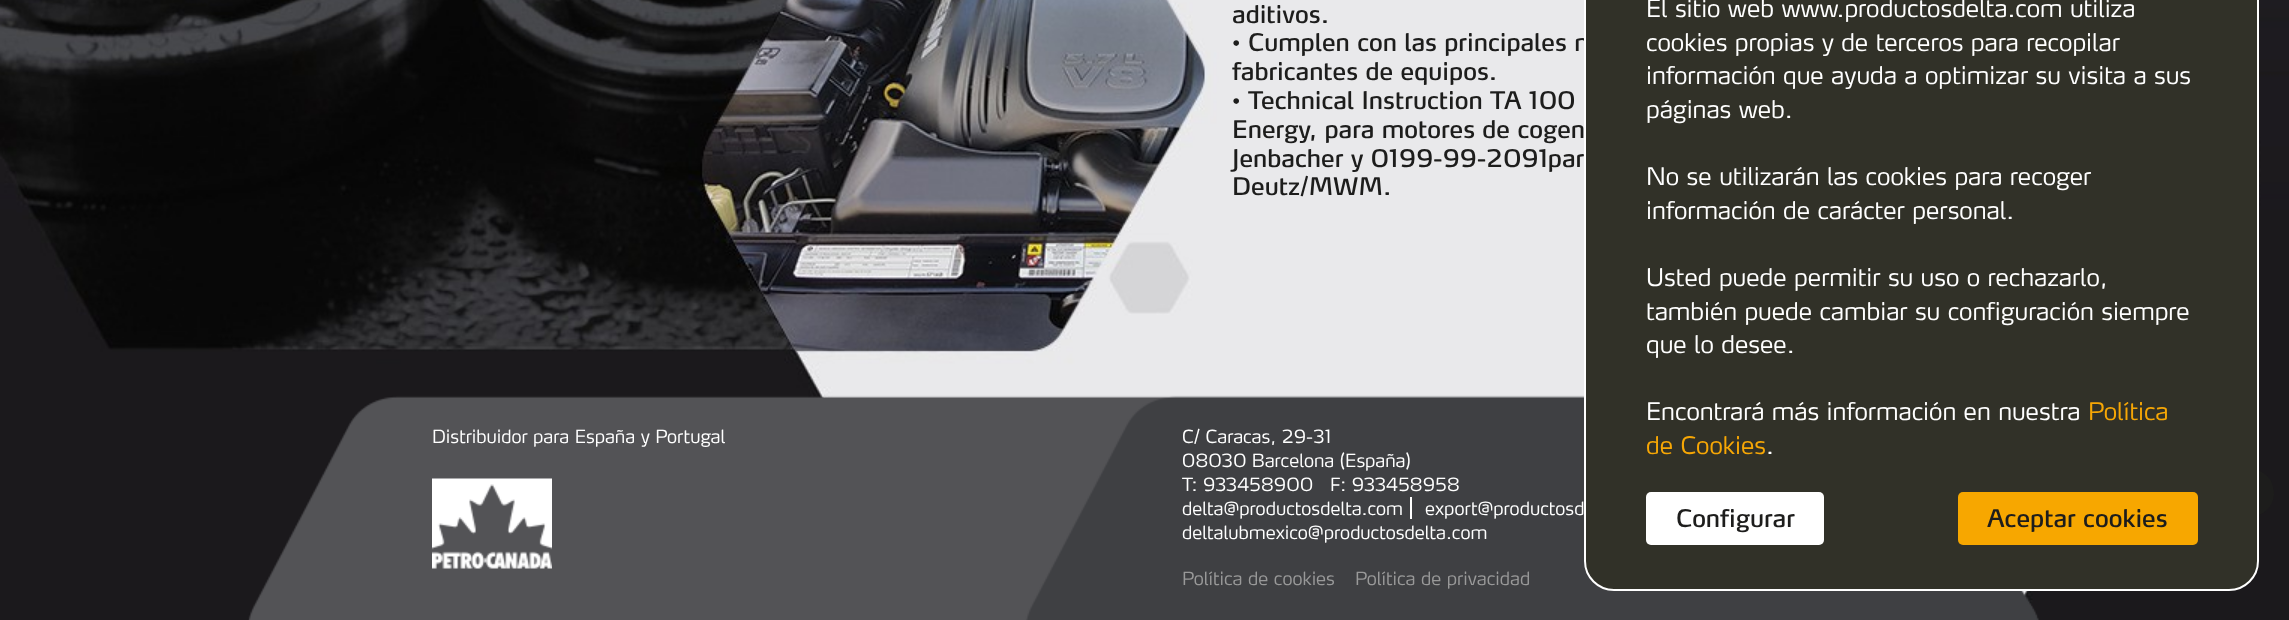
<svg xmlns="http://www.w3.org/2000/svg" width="2289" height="620">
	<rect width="100%" height="100%" fill="#FFFFFF" />
	<image x="0" y="0" width="2289" height="620" href="assets/img1.png" />
	<text x="1232" y="23" font-family="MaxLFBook" font-size="24" fill="#1D1D1C">aditivos.</text>
	<text x="1232" y="51" font-family="Liberation Serif" font-size="24" fill="#1D1D1C">•</text>
	<g font-family="MaxLFBook" font-size="24" fill="#1D1D1C">
		<text x="1248" y="51">Cumplen con las principales n</text>
		<text x="1232" y="80">fabricantes de equipos.</text>
	</g>
	<text x="1232" y="109" font-family="Liberation Serif" font-size="24" fill="#1D1D1C">•</text>
	<g font-family="MaxLFBook" font-size="24" fill="#1D1D1C">
		<text x="1248" y="109">Technical Instruction TA 100</text>
		<text x="1232" y="138">Energy, para motores de cogen</text>
		<text x="1232" y="167">Jenbacher y 0199-99-2091par</text>
		<text x="1232" y="195">Deutz/MWM.</text>
	</g>
	<image x="248" y="395" width="1791" height="225" href="assets/img2.png" />
	<text x="432" y="443" font-family="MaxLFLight" font-size="18" font-weight="300" fill="#FFFFFF">Distribuidor para España y Portugal</text>
	<image x="432" y="478" width="120" height="91" href="assets/img3.png" />
	<g font-family="MaxLFLight" font-size="18" font-weight="300" fill="#FFFFFF">
		<text x="1182" y="443">C/ Caracas, 29-31</text>
		<text x="1182" y="467">08030 Barcelona (España)</text>
		<text x="1182" y="491">T: 933458900</text>
		<text x="1330" y="491">F: 933458958</text>
		<text x="1182" y="515">delta@productosdelta.com</text>
	</g>
	<rect x="1410" y="497" width="2" height="22" fill="#FFFFFF" />
	<g font-family="MaxLFLight" font-size="18" font-weight="300" fill="#FFFFFF">
		<text x="1425" y="515">export@productosd</text>
		<text x="1182" y="539">deltalubmexico@productosdelta.com</text>
	</g>
	<g font-family="MaxLFLight" font-size="18" font-weight="300" fill="#999999">
		<text x="1182" y="585">Política de cookies</text>
		<text x="1355" y="585">Política de privacidad</text>
	</g>
	<path d="M2271 481C2273 485 2274 490 2274 495C2272 518 2241 525 2229 505C2227 501 2226 496 2226 491C2228 468 2259 461 2271 481Z" fill="#1D1D1C" />
	<rect x="1585" y="-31" width="673" height="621" rx="29" fill="#313128" stroke="#FFFFFF" stroke-width="2" />
	<g font-family="MaxLFLight" font-size="24" font-weight="300" fill="#FFFFFF">
		<text x="1646" y="17">El sitio web www.productosdelta.com utiliza</text>
		<text x="1646" y="51">cookies propias y de terceros para recopilar</text>
		<text x="1646" y="84">información que ayuda a optimizar su visita a sus</text>
		<text x="1646" y="118">páginas web.</text>
		<text x="1646" y="185">No se utilizarán las cookies para recoger</text>
		<text x="1646" y="219">información de carácter personal.</text>
		<text x="1646" y="286">Usted puede permitir su uso o rechazarlo,</text>
		<text x="1646" y="320">también puede cambiar su configuración siempre</text>
		<text x="1646" y="353">que lo desee.</text>
		<text x="1646" y="420">Encontrará más información en nuestra</text>
	</g>
	<g font-family="MaxLFLight" font-size="24" font-weight="300" fill="#F7A705">
		<text x="2088" y="420">Política</text>
		<text x="1646" y="454">de Cookies</text>
	</g>
	<text x="1766" y="454" font-family="MaxLFLight" font-size="24" font-weight="300" fill="#FFFFFF">.</text>
	<rect x="1646" y="492" width="178" height="53" rx="5" fill="#FFFFFF" />
	<text x="1676" y="527" font-family="MaxLFBook" font-size="24" fill="#1D1D1C">Configurar</text>
	<rect x="1958" y="492" width="240" height="53" rx="5" fill="#F7A700" />
	<text x="1987" y="527" font-family="MaxLFBook" font-size="24" fill="#1D1D1C">Aceptar cookies</text>
</svg>
